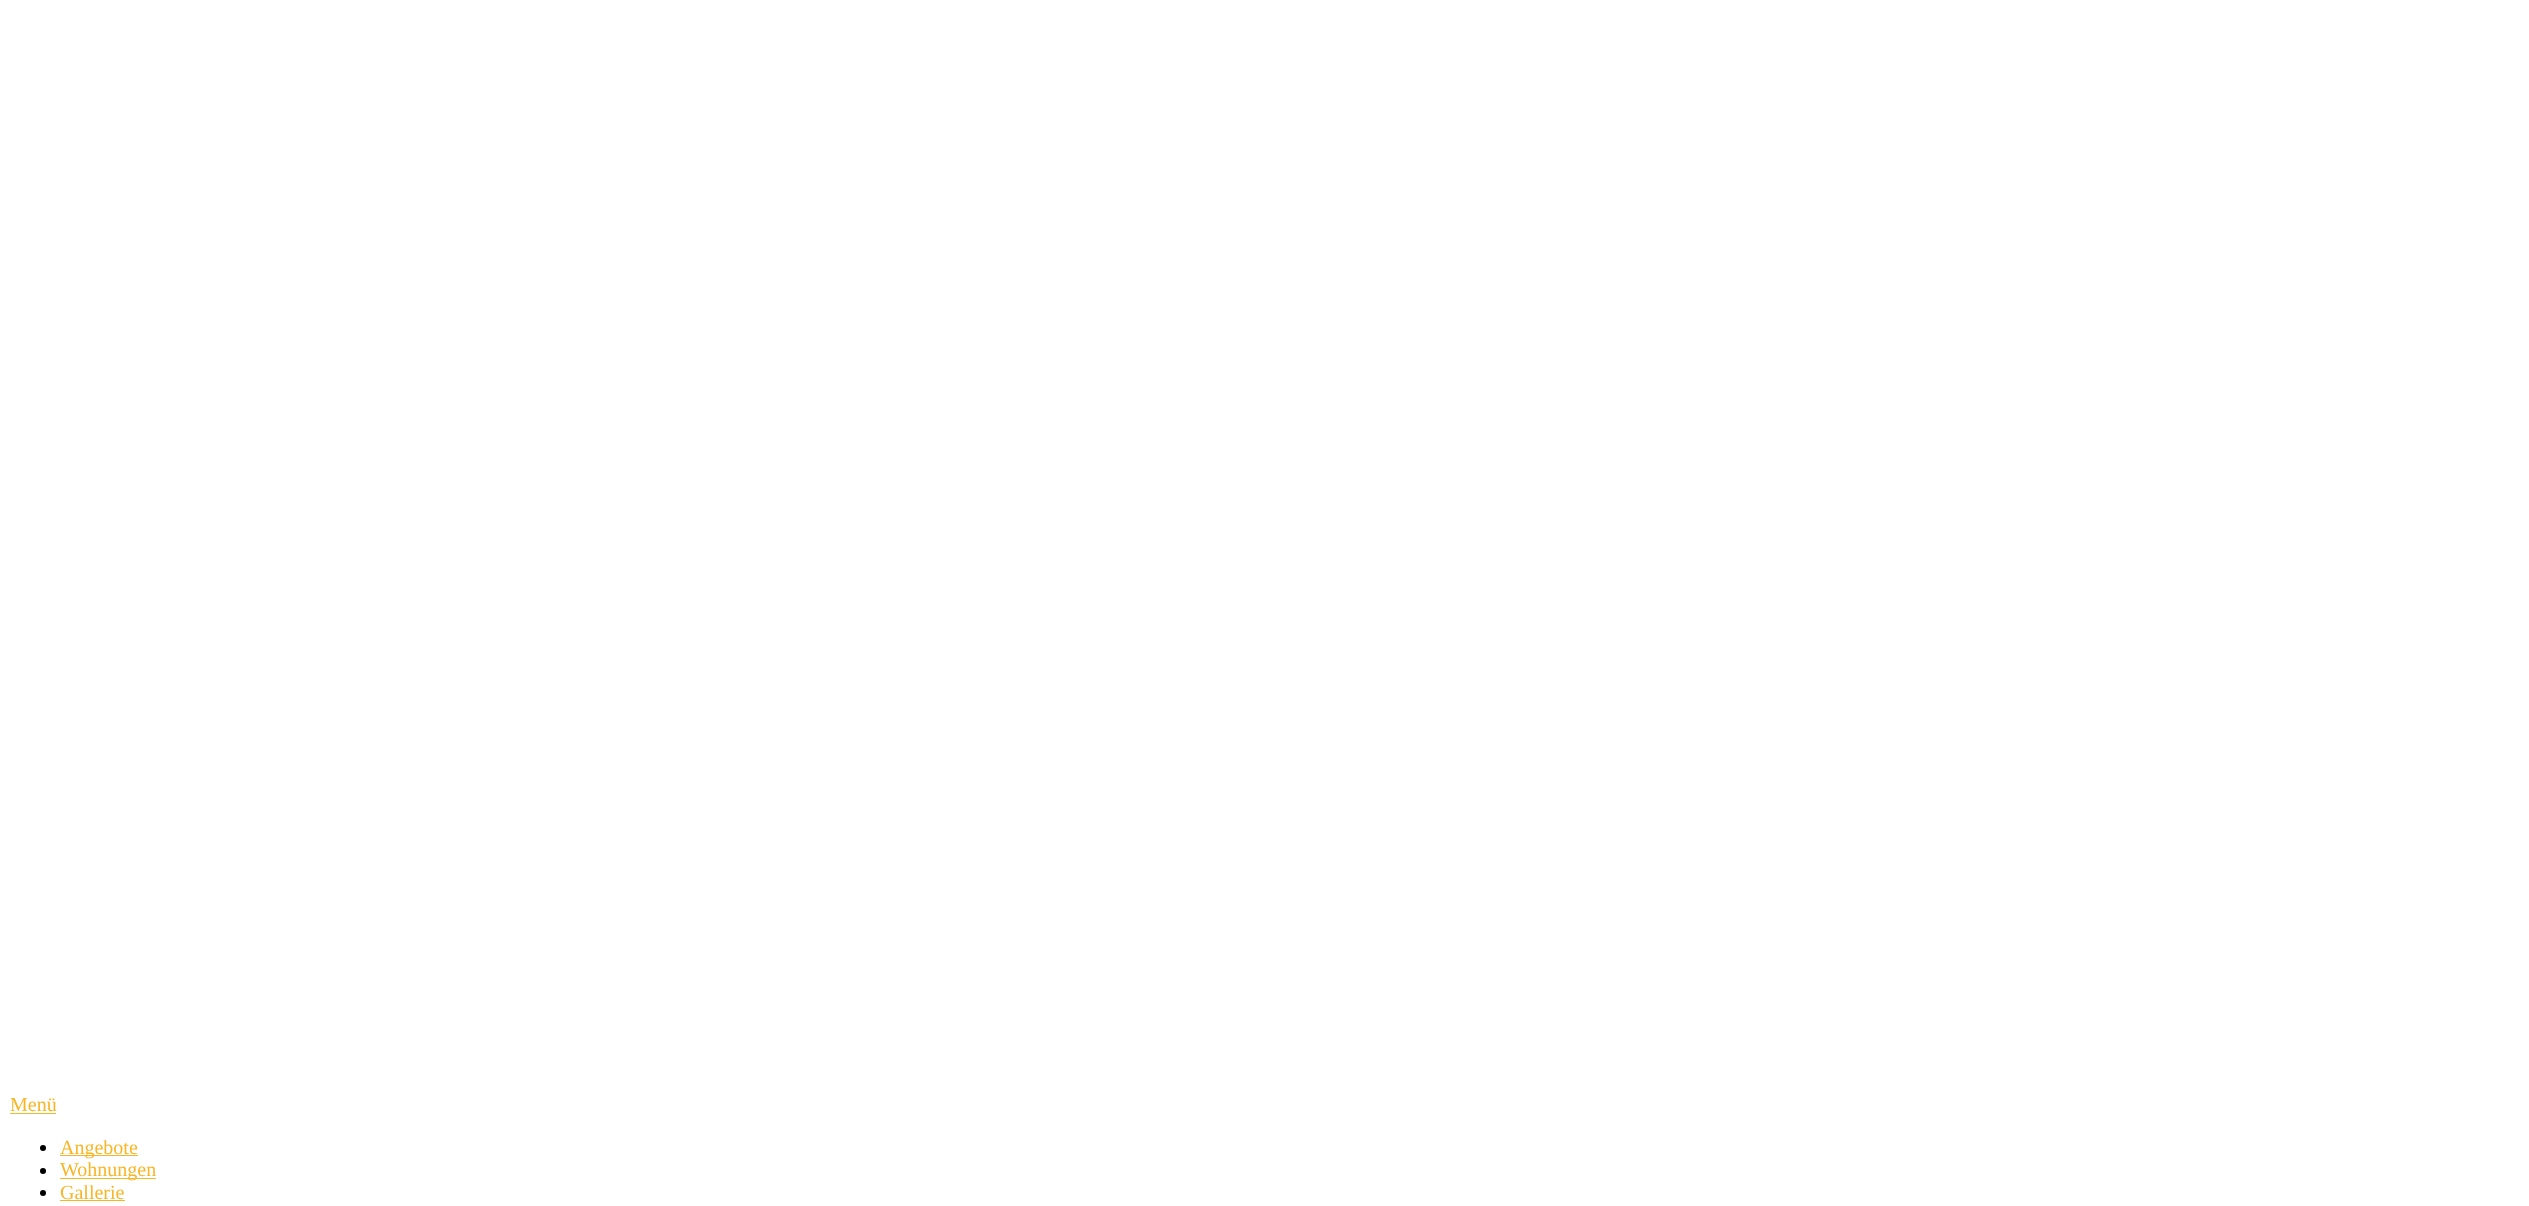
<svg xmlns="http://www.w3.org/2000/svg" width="2529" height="1206">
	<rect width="100%" height="100%" fill="#FFFFFF" />
	<text x="10" y="1111" font-family="Liberation Serif" font-size="20" fill="#F8B525">Menü</text>
	<rect x="10" y="1113" width="46" height="1" fill="#F8B525" />
	<circle cx="43" cy="1148" r="3" fill="#000000" />
	<rect x="60" y="1155" width="78" height="1" fill="#F8B525" />
	<text x="60" y="1154" font-family="Liberation Serif" font-size="20" fill="#F8B525">Angebote</text>
	<circle cx="43" cy="1171" r="3" fill="#000000" />
	<rect x="60" y="1178" width="96" height="1" fill="#F8B525" />
	<text x="60" y="1176" font-family="Liberation Serif" font-size="20" fill="#F8B525">Wohnungen</text>
	<circle cx="43" cy="1193" r="3" fill="#000000" />
	<text x="60" y="1199" font-family="Liberation Serif" font-size="20" fill="#F8B525">Gallerie</text>
	<rect x="60" y="1200" width="65" height="1" fill="#F8B525" />
</svg>
